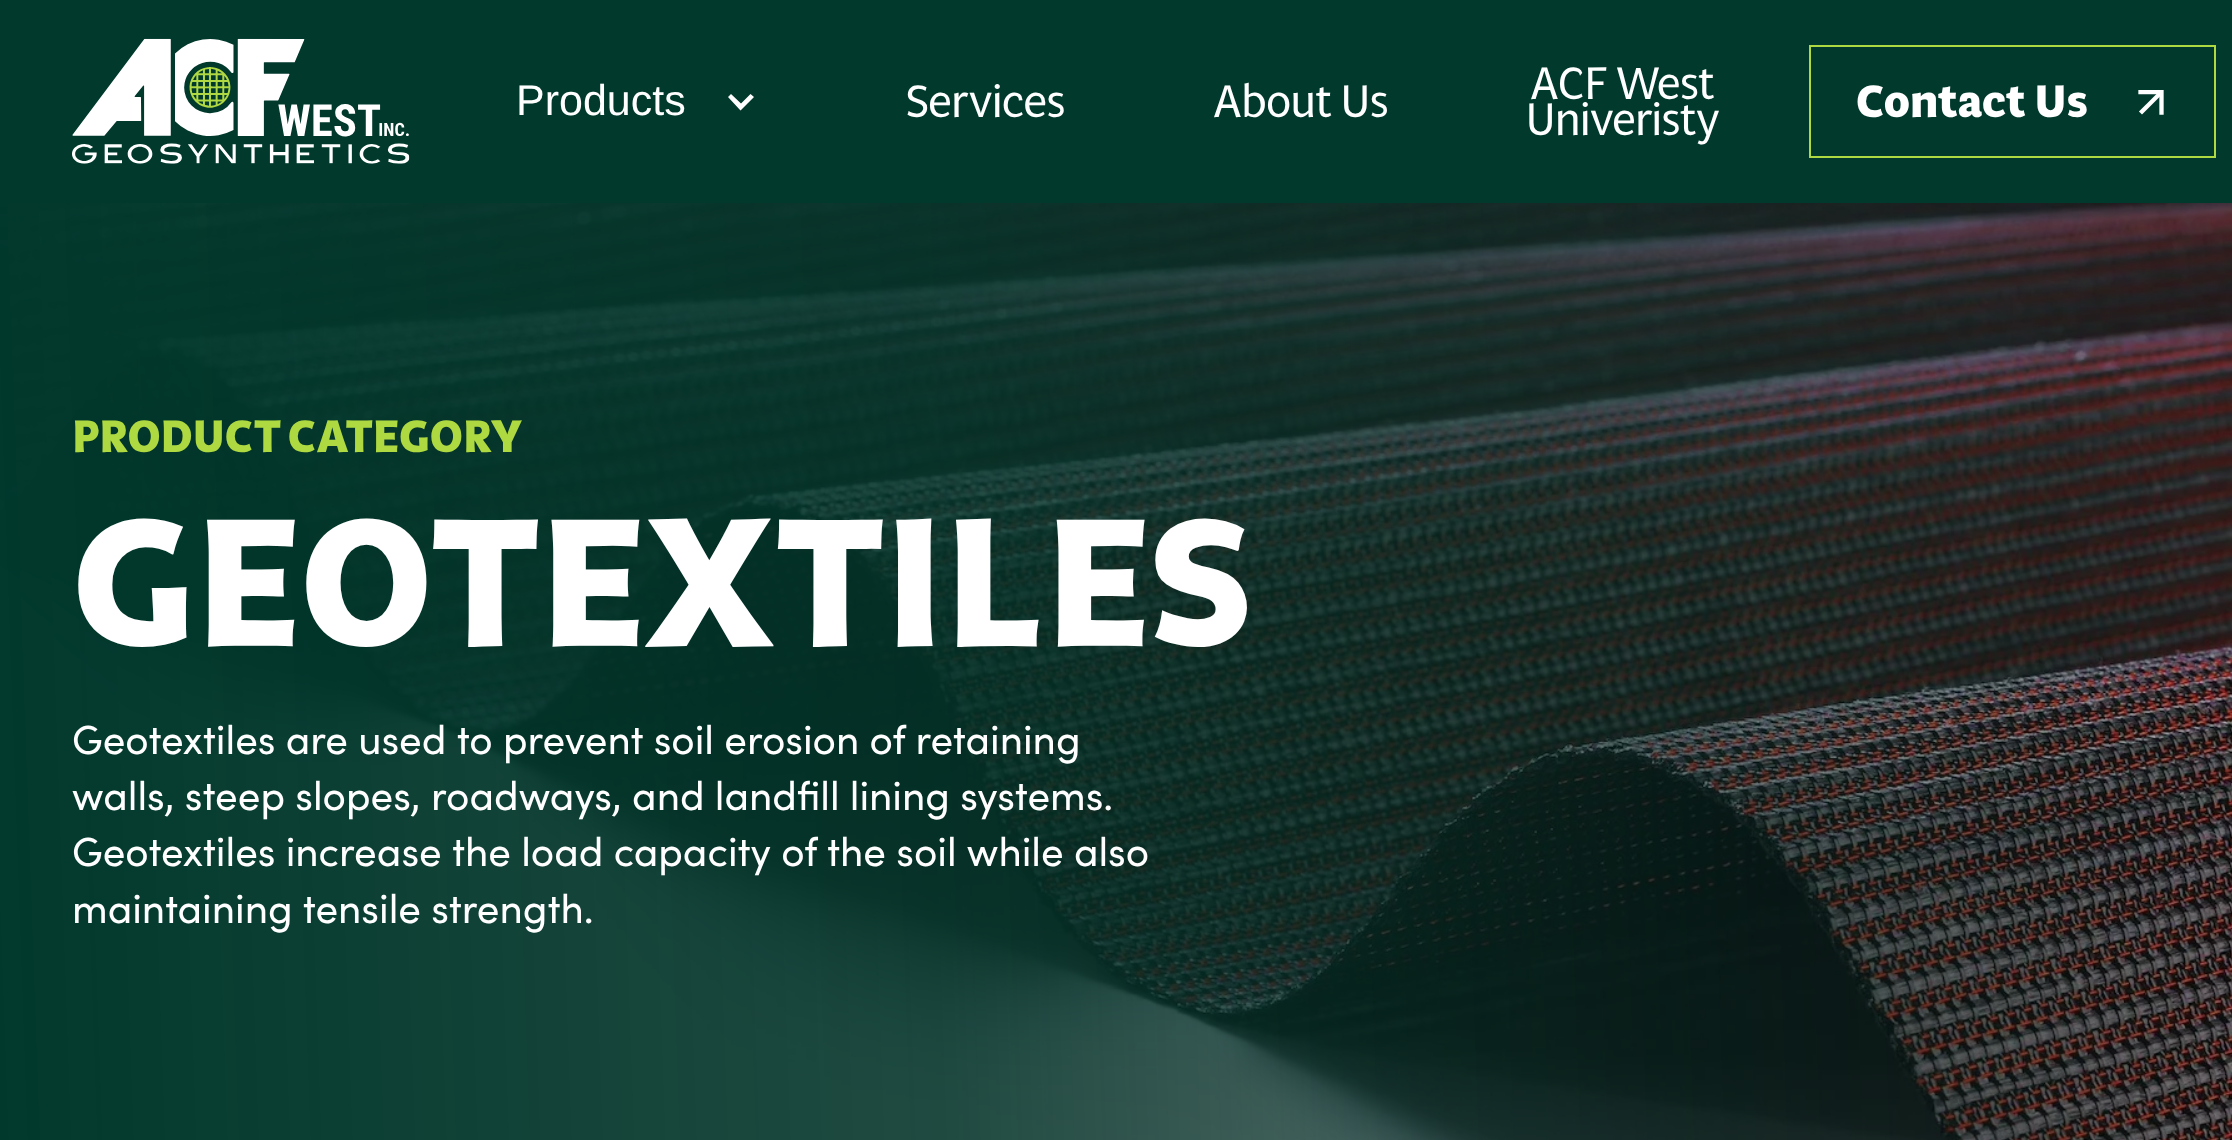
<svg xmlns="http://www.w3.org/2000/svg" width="2232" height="1140">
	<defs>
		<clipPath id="clip1"><rect x="2138" y="90" width="27" height="25" /></clipPath>
	</defs>
	<rect width="100%" height="100%" fill="#FFFFFF" />
	<rect x="0" y="0" width="2232" height="203" fill="#01392C" />
	<image x="72" y="38" width="338" height="126" href="assets/img1.png" />
	<text x="516" y="115" font-family="Liberation Sans" font-size="43" fill="#FFFFFF">Products</text>
	<path d="M750.5 94L741 103.5L731 94L728 97L740.5 110.5L754 97Z" fill="#FFFFFF" />
	<g font-family="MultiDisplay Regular" font-size="45" fill="#FFFFFF">
		<text x="906" y="117">Services</text>
		<text x="1213" y="117">About Us</text>
		<text x="1530" y="99">ACF West</text>
		<text x="1526" y="135">Univeristy</text>
	</g>
	<rect x="1810" y="46" width="405" height="111" fill="none" stroke="#AFD941" stroke-width="2" />
	<text x="1856" y="117" font-family="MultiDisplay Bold" font-size="45" font-weight="700" fill="#FFFFFF">Contact Us</text>
	<g clip-path="url(#clip1)">
		<path d="M2140.5 92H2161.5V112.5" fill="none" stroke="#FFFFFF" stroke-width="4.3" stroke-linecap="square" />
	</g>
	<path d="M2160 93.5L2142 111.5" fill="none" stroke="#FFFFFF" stroke-width="4.3" stroke-linecap="square" />
	<image x="0" y="203" width="2232" height="937" href="assets/img2.png" />
	<text x="72" y="452" font-family="MultiDisplay Bold" font-size="45" font-weight="700" fill="#AFD941">PRODUCT CATEGORY</text>
	<text x="72" y="646" font-family="MultiDisplay Bold" font-size="180" font-weight="700" fill="#FFFFFF">GEOTEXTILES</text>
	<g font-family="Sofia" font-size="40.5" fill="#FFFFFF">
		<text x="72" y="754">Geotextiles are used to prevent soil erosion of retaining</text>
		<text x="72" y="810">walls, steep slopes, roadways, and landfill lining systems.</text>
		<text x="72" y="866">Geotextiles increase the load capacity of the soil while also</text>
		<text x="72" y="923">maintaining tensile strength.</text>
	</g>
</svg>
